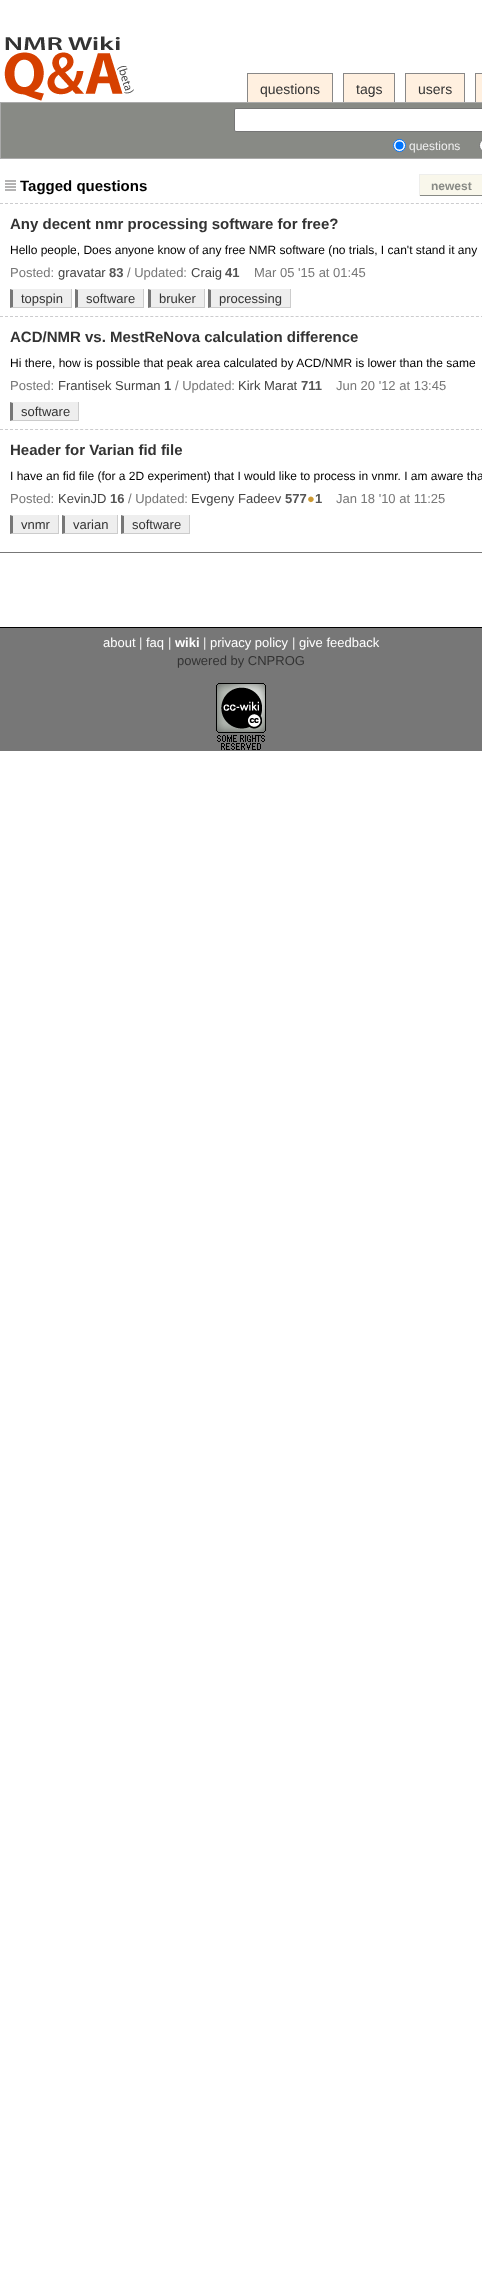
<svg xmlns="http://www.w3.org/2000/svg" width="482" height="2288">
	<rect width="100%" height="100%" fill="#FFFFFF" />
	<image x="4" y="36" width="130" height="65" href="assets/img1.png" />
	<rect x="248" y="74" width="84" height="28" fill="#FFF0E0" />
	<rect x="247" y="73" width="86" height="1" fill="#888888" />
	<rect x="332" y="73" width="1" height="29" fill="#888888" />
	<rect x="247" y="73" width="1" height="29" fill="#888888" />
	<text x="260" y="94" font-family="Liberation Sans" font-size="14" fill="#333333">questions</text>
	<rect x="344" y="74" width="50" height="28" fill="#FFF0E0" />
	<rect x="343" y="73" width="52" height="1" fill="#888888" />
	<rect x="394" y="73" width="1" height="29" fill="#888888" />
	<rect x="343" y="73" width="1" height="29" fill="#888888" />
	<text x="356" y="94" font-family="Liberation Sans" font-size="14" fill="#333333">tags</text>
	<rect x="406" y="74" width="58" height="28" fill="#FFF0E0" />
	<rect x="405" y="73" width="60" height="1" fill="#888888" />
	<rect x="464" y="73" width="1" height="29" fill="#888888" />
	<rect x="405" y="73" width="1" height="29" fill="#888888" />
	<text x="418" y="94" font-family="Liberation Sans" font-size="14" fill="#333333">users</text>
	<rect x="476" y="73" width="6" height="29" fill="#FFF0E0" />
	<rect x="475" y="73" width="7" height="1" fill="#888888" />
	<rect x="475" y="73" width="1" height="29" fill="#888888" />
	<rect x="0.5" y="102.5" width="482" height="56" fill="#888A85" stroke="#AAAAAA" />
	<rect x="234.5" y="108.5" width="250" height="23" rx="1.5" fill="#FFFFFF" stroke="#767676" />
	<circle cx="399.5" cy="145.5" r="6" fill="#FFFFFF" stroke="#0075FF" />
	<circle cx="399.5" cy="145.5" r="4" fill="#0075FF" />
	<text x="409" y="150" font-family="Liberation Sans" font-size="12" fill="#EEEEEE">questions</text>
	<rect x="479.5" y="139.5" width="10" height="12" rx="6" fill="#FFFFFF" stroke="#767676" />
	<rect x="0" y="552" width="482" height="1" fill="#777777" />
	<image x="5" y="180" width="11" height="11" href="assets/img2.png" />
	<text x="20" y="191" font-family="Liberation Sans" font-size="15" font-weight="700" fill="#000000">Tagged questions</text>
	<rect x="420" y="175" width="62" height="20" fill="#F9F7EB" />
	<rect x="419" y="174" width="63" height="1" fill="#EEEEEC" />
	<rect x="419" y="195" width="63" height="1" fill="#888A85" />
	<rect x="419" y="174" width="1" height="22" fill="#EEEEEC" />
	<text x="431" y="190" font-family="Liberation Sans" font-size="12" font-weight="700" fill="#888A85">newest</text>
	<path d="M0 203.5H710" fill="none" stroke="#CCCCCE" stroke-dasharray="3 2.01" />
	<text x="10" y="229" font-family="Liberation Sans" font-size="15" font-weight="700" fill="#333333">Any decent nmr processing software for free?</text>
	<text x="10" y="254" font-family="Liberation Sans" font-size="12" fill="#000000">Hello people, Does anyone know of any free NMR software (no trials, I can't stand it any</text>
	<text x="10" y="277" font-family="Liberation Sans" font-size="13" fill="#777777">Posted:</text>
	<text x="58" y="277" font-family="Liberation Sans" font-size="13" fill="#444444">gravatar</text>
	<text x="109" y="277" font-family="Liberation Sans" font-size="13" font-weight="700" fill="#555555">83</text>
	<text x="127" y="277" font-family="Liberation Sans" font-size="13" fill="#777777">/ Updated:</text>
	<text x="191" y="277" font-family="Liberation Sans" font-size="13" fill="#444444">Craig</text>
	<text x="225" y="277" font-family="Liberation Sans" font-size="13" font-weight="700" fill="#555555">41</text>
	<text x="254" y="277" font-family="Liberation Sans" font-size="13" fill="#777777">Mar 05 '15 at 01:45</text>
	<rect x="13" y="290" width="58" height="17" fill="#EEEEEE" />
	<text x="21" y="303" font-family="Liberation Sans" font-size="13" fill="#333333">topspin</text>
	<path d="M10 289H72L71 290H13Z" fill="#EEEEEE" />
	<rect x="71" y="289" width="1" height="19" fill="#CCCCCC" />
	<path d="M72 308H10L13 307H71Z" fill="#CCCCCC" />
	<path d="M10 308V289L13 290V307Z" fill="#777777" />
	<rect x="78" y="290" width="65" height="17" fill="#EEEEEE" />
	<text x="86" y="303" font-family="Liberation Sans" font-size="13" fill="#333333">software</text>
	<path d="M75 289H144L143 290H78Z" fill="#EEEEEE" />
	<rect x="143" y="289" width="1" height="19" fill="#CCCCCC" />
	<path d="M144 308H75L78 307H143Z" fill="#CCCCCC" />
	<path d="M75 308V289L78 290V307Z" fill="#777777" />
	<rect x="151" y="290" width="53" height="17" fill="#EEEEEE" />
	<text x="159" y="303" font-family="Liberation Sans" font-size="13" fill="#333333">bruker</text>
	<path d="M148 289H205L204 290H151Z" fill="#EEEEEE" />
	<rect x="204" y="289" width="1" height="19" fill="#CCCCCC" />
	<path d="M205 308H148L151 307H204Z" fill="#CCCCCC" />
	<path d="M148 308V289L151 290V307Z" fill="#777777" />
	<rect x="211" y="290" width="79" height="17" fill="#EEEEEE" />
	<text x="219" y="303" font-family="Liberation Sans" font-size="13" fill="#333333">processing</text>
	<path d="M208 289H291L290 290H211Z" fill="#EEEEEE" />
	<rect x="290" y="289" width="1" height="19" fill="#CCCCCC" />
	<path d="M291 308H208L211 307H290Z" fill="#CCCCCC" />
	<path d="M208 308V289L211 290V307Z" fill="#777777" />
	<path d="M0 316.5H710" fill="none" stroke="#CCCCCE" stroke-dasharray="3 2.01" />
	<text x="10" y="342" font-family="Liberation Sans" font-size="15" font-weight="700" fill="#333333">ACD/NMR vs. MestReNova calculation difference</text>
	<text x="10" y="367" font-family="Liberation Sans" font-size="12" fill="#000000">Hi there, how is possible that peak area calculated by ACD/NMR is lower than the same</text>
	<text x="10" y="390" font-family="Liberation Sans" font-size="13" fill="#777777">Posted:</text>
	<text x="58" y="390" font-family="Liberation Sans" font-size="13" fill="#444444">Frantisek Surman</text>
	<text x="164" y="390" font-family="Liberation Sans" font-size="13" font-weight="700" fill="#555555">1</text>
	<text x="175" y="390" font-family="Liberation Sans" font-size="13" fill="#777777">/ Updated:</text>
	<text x="238" y="390" font-family="Liberation Sans" font-size="13" fill="#444444">Kirk Marat</text>
	<text x="301" y="390" font-family="Liberation Sans" font-size="13" font-weight="700" fill="#555555">711</text>
	<text x="336" y="390" font-family="Liberation Sans" font-size="13" fill="#777777">Jun 20 '12 at 13:45</text>
	<rect x="13" y="403" width="65" height="17" fill="#EEEEEE" />
	<text x="21" y="416" font-family="Liberation Sans" font-size="13" fill="#333333">software</text>
	<path d="M10 402H79L78 403H13Z" fill="#EEEEEE" />
	<rect x="78" y="402" width="1" height="19" fill="#CCCCCC" />
	<path d="M79 421H10L13 420H78Z" fill="#CCCCCC" />
	<path d="M10 421V402L13 403V420Z" fill="#777777" />
	<path d="M0 429.5H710" fill="none" stroke="#CCCCCE" stroke-dasharray="3 2.01" />
	<text x="10" y="455" font-family="Liberation Sans" font-size="15" font-weight="700" fill="#333333">Header for Varian fid file</text>
	<text x="10" y="480" font-family="Liberation Sans" font-size="12" fill="#000000">I have an fid file (for a 2D experiment) that I would like to process in vnmr. I am aware tha</text>
	<text x="10" y="503" font-family="Liberation Sans" font-size="13" fill="#777777">Posted:</text>
	<text x="58" y="503" font-family="Liberation Sans" font-size="13" fill="#444444">KevinJD</text>
	<text x="110" y="503" font-family="Liberation Sans" font-size="13" font-weight="700" fill="#555555">16</text>
	<text x="128" y="503" font-family="Liberation Sans" font-size="13" fill="#777777">/ Updated:</text>
	<text x="191" y="503" font-family="Liberation Sans" font-size="13" fill="#444444">Evgeny Fadeev</text>
	<text x="285" y="503" font-family="Liberation Sans" font-size="13" font-weight="700" fill="#555555">577</text>
	<text x="307" y="503" font-family="Liberation Sans" font-size="13" font-weight="700" fill="#CC9933">●</text>
	<text x="315" y="503" font-family="Liberation Sans" font-size="13" font-weight="700" fill="#555555">1</text>
	<text x="336" y="503" font-family="Liberation Sans" font-size="13" fill="#777777">Jan 18 '10 at 11:25</text>
	<rect x="13" y="516" width="45" height="17" fill="#EEEEEE" />
	<text x="21" y="529" font-family="Liberation Sans" font-size="13" fill="#333333">vnmr</text>
	<path d="M10 515H59L58 516H13Z" fill="#EEEEEE" />
	<rect x="58" y="515" width="1" height="19" fill="#CCCCCC" />
	<path d="M59 534H10L13 533H58Z" fill="#CCCCCC" />
	<path d="M10 534V515L13 516V533Z" fill="#777777" />
	<rect x="65" y="516" width="52" height="17" fill="#EEEEEE" />
	<text x="73" y="529" font-family="Liberation Sans" font-size="13" fill="#333333">varian</text>
	<path d="M62 515H118L117 516H65Z" fill="#EEEEEE" />
	<rect x="117" y="515" width="1" height="19" fill="#CCCCCC" />
	<path d="M118 534H62L65 533H117Z" fill="#CCCCCC" />
	<path d="M62 534V515L65 516V533Z" fill="#777777" />
	<rect x="124" y="516" width="65" height="17" fill="#EEEEEE" />
	<text x="132" y="529" font-family="Liberation Sans" font-size="13" fill="#333333">software</text>
	<path d="M121 515H190L189 516H124Z" fill="#EEEEEE" />
	<rect x="189" y="515" width="1" height="19" fill="#CCCCCC" />
	<path d="M190 534H121L124 533H189Z" fill="#CCCCCC" />
	<path d="M121 534V515L124 516V533Z" fill="#777777" />
	<rect x="0" y="628" width="482" height="123" fill="#777777" />
	<rect x="0" y="627" width="482" height="1" fill="#000000" />
	<text x="103" y="647" font-family="Liberation Sans" font-size="13" fill="#FFFFFF">about</text>
	<text x="139" y="647" font-family="Liberation Sans" font-size="13" fill="#EEEEEE">|</text>
	<text x="146" y="647" font-family="Liberation Sans" font-size="13" fill="#FFFFFF">faq</text>
	<text x="168" y="647" font-family="Liberation Sans" font-size="13" fill="#EEEEEE">|</text>
	<text x="175" y="647" font-family="Liberation Sans" font-size="13" font-weight="700" fill="#FFFFFF">wiki</text>
	<text x="203" y="647" font-family="Liberation Sans" font-size="13" fill="#EEEEEE">|</text>
	<text x="210" y="647" font-family="Liberation Sans" font-size="13" fill="#FFFFFF">privacy policy</text>
	<text x="292" y="647" font-family="Liberation Sans" font-size="13" fill="#EEEEEE">|</text>
	<text x="299" y="647" font-family="Liberation Sans" font-size="13" fill="#FFFFFF">give feedback</text>
	<text x="177" y="665" font-family="Liberation Sans" font-size="13" fill="#333333">powered by CNPROG</text>
	<image x="216" y="683" width="50" height="67" href="assets/img3.png" />
</svg>
